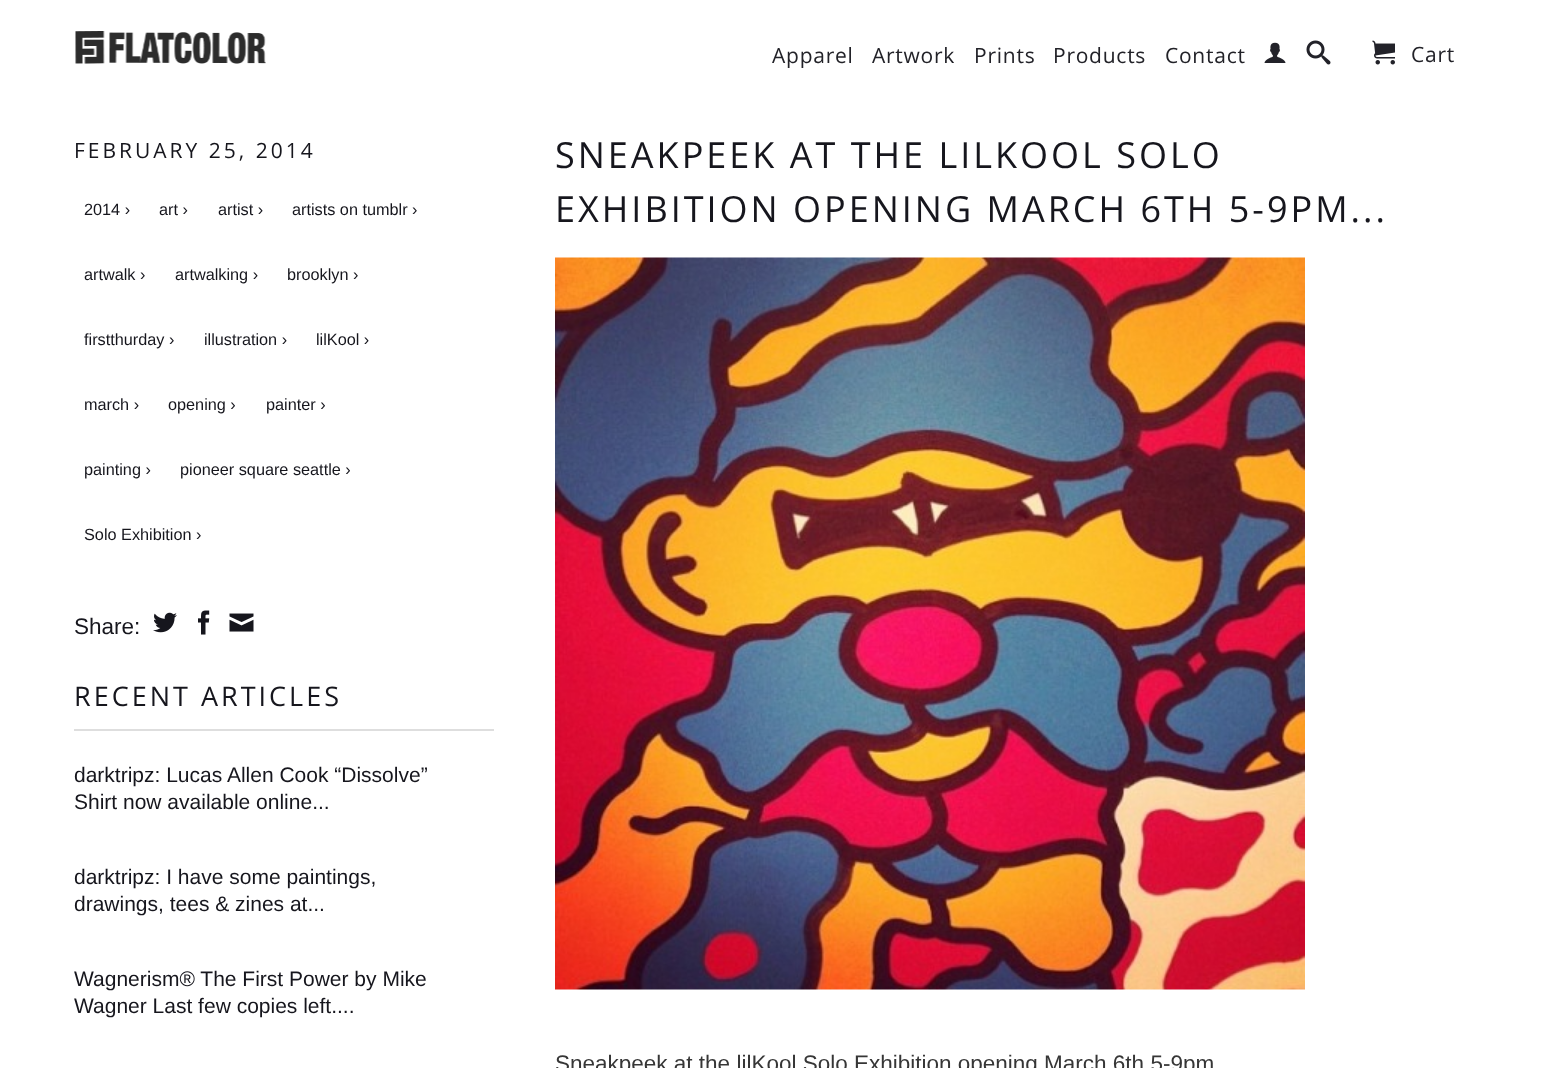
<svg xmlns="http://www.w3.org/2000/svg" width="1557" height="1068">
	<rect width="100%" height="100%" fill="#FFFFFF" />
	<image x="75" y="31" width="191" height="33" href="assets/img1.png" />
	<g font-family="Open Sans" font-size="21" letter-spacing="0.75" fill="#222228">
		<text x="772" y="63">Apparel</text>
		<text x="872" y="63">Artwork</text>
		<text x="974" y="63">Prints</text>
		<text x="1053" y="63">Products</text>
		<text x="1165" y="63">Contact</text>
	</g>
	<image x="1264" y="42" width="22" height="21" href="assets/img2.png" />
	<image x="1306" y="40" width="25" height="25" href="assets/img3.png" />
	<image x="1372" y="40" width="23" height="25" href="assets/img4.png" />
	<text x="1411" y="62" font-family="Open Sans" font-size="21" letter-spacing="0.75" fill="#222228">Cart</text>
	<text x="74" y="158" font-family="Open Sans" font-size="21" letter-spacing="3" fill="#16161D">FEBRUARY 25, 2014</text>
	<g font-family="Liberation Sans" font-size="16.25" fill="#16161D">
		<text x="84" y="215">2014 ›</text>
		<text x="159" y="215">art ›</text>
		<text x="218" y="215">artist ›</text>
		<text x="292" y="215">artists on tumblr ›</text>
		<text x="84" y="280">artwalk ›</text>
		<text x="175" y="280">artwalking ›</text>
		<text x="287" y="280">brooklyn ›</text>
		<text x="84" y="345">firstthurday ›</text>
		<text x="204" y="345">illustration ›</text>
		<text x="316" y="345">lilKool ›</text>
		<text x="84" y="410">march ›</text>
		<text x="168" y="410">opening ›</text>
		<text x="266" y="410">painter ›</text>
		<text x="84" y="475">painting ›</text>
		<text x="180" y="475">pioneer square seattle ›</text>
		<text x="84" y="540">Solo Exhibition ›</text>
	</g>
	<text x="74" y="634" font-family="Liberation Sans" font-size="22.5" fill="#16161D">Share:</text>
	<image x="153" y="612" width="24" height="21" href="assets/img5.png" />
	<image x="198" y="610" width="12" height="25" href="assets/img6.png" />
	<image x="229" y="613" width="25" height="19" href="assets/img7.png" />
	<rect x="74" y="729" width="420" height="2" fill="#DEDEDE" />
	<text x="74" y="706" font-family="Open Sans" font-size="27" letter-spacing="3" fill="#16161D">RECENT ARTICLES</text>
	<g font-family="Liberation Sans" font-size="21" fill="#16161D">
		<text x="74" y="782">darktripz: Lucas Allen Cook “Dissolve”</text>
		<text x="74" y="809">Shirt now available online...</text>
		<text x="74" y="884">darktripz: I have some paintings,</text>
		<text x="74" y="911">drawings, tees &amp; zines at...</text>
		<text x="74" y="986">Wagnerism® The First Power by Mike</text>
		<text x="74" y="1013">Wagner Last few copies left....</text>
	</g>
	<g font-family="Open Sans" font-size="36" letter-spacing="3" fill="#16161D">
		<text x="555" y="168">SNEAKPEEK AT THE LILKOOL SOLO</text>
		<text x="555" y="222">EXHIBITION OPENING MARCH 6TH 5-9PM...</text>
	</g>
	<image x="555" y="257" width="750" height="733" href="assets/img8.png" />
	<text x="555" y="1071" font-family="Liberation Sans" font-size="22.5" fill="#363636">Sneakpeek at the lilKool Solo Exhibition opening March 6th 5-9pm</text>
</svg>
